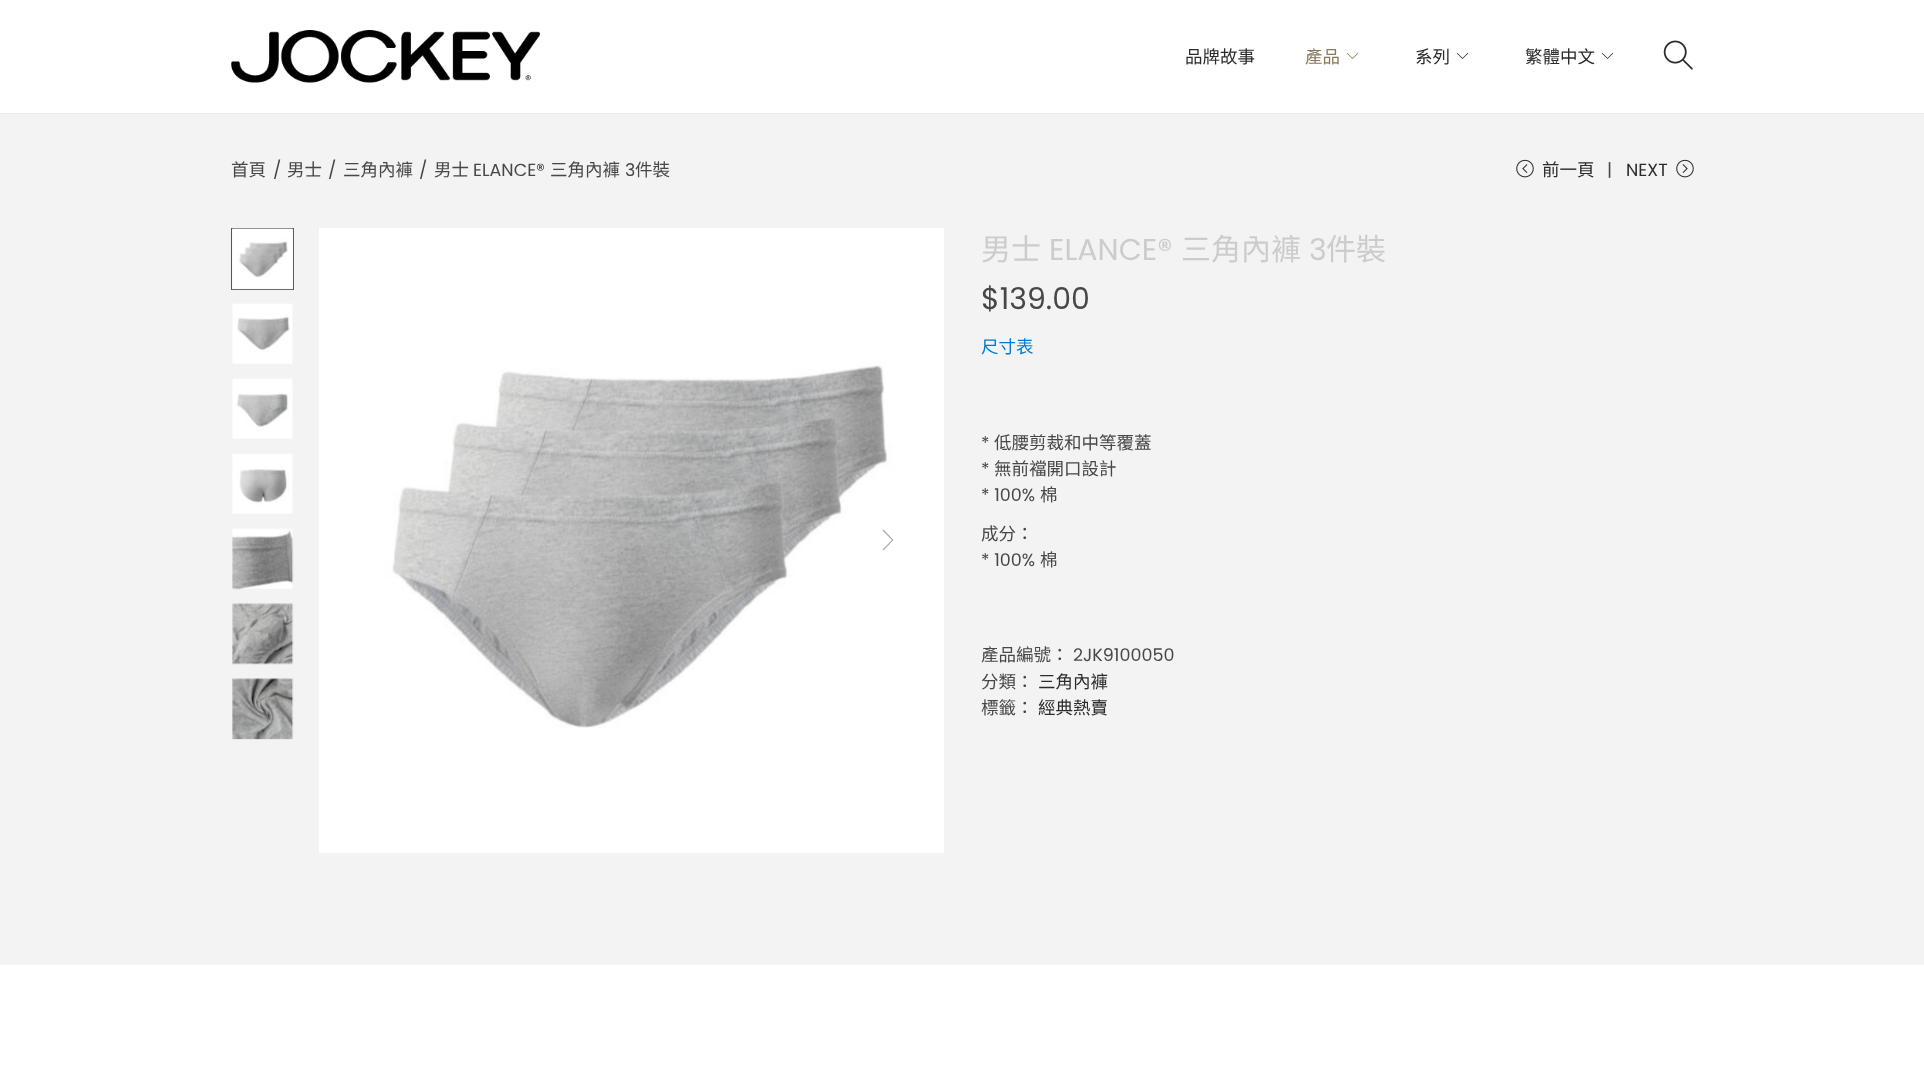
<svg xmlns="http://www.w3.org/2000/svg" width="1924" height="1075">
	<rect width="100%" height="100%" fill="#FFFFFF" />
	<rect x="0" y="113" width="1924" height="1" fill="#EAEAEA" />
	<image x="231" y="30" width="309" height="53" href="assets/img1.png" />
	<text x="1185" y="63" font-family="Noto Sans CJK HK" font-size="17.5" fill="#2B2B2B">品牌故事</text>
	<text x="1305" y="63" font-family="Noto Sans CJK HK" font-size="17.5" fill="#89795A">產品</text>
	<image x="1346" y="52" width="13" height="7" href="assets/img2.png" />
	<text x="1415" y="63" font-family="Noto Sans CJK HK" font-size="17.5" fill="#2B2B2B">系列</text>
	<image x="1456" y="52" width="13" height="7" href="assets/img3.png" />
	<text x="1525" y="63" font-family="Noto Sans CJK HK" font-size="17.5" fill="#2B2B2B">繁體中文</text>
	<image x="1601" y="52" width="13" height="7" href="assets/img3.png" />
	<image x="1663" y="40" width="30" height="30" href="assets/img4.png" />
	<rect x="0" y="114" width="1924" height="851" fill="#F3F3F3" />
	<text x="231" y="176" font-family="Noto Sans CJK HK" font-size="17.5" fill="#474747">首頁</text>
	<text x="273" y="176" font-family="Poppins" font-size="17.5" fill="#474747">/</text>
	<text x="287" y="176" font-family="Noto Sans CJK HK" font-size="17.5" fill="#474747">男士</text>
	<text x="328" y="176" font-family="Poppins" font-size="17.5" fill="#474747">/</text>
	<text x="343" y="176" font-family="Noto Sans CJK HK" font-size="17.5" fill="#474747">三角內褲</text>
	<text x="419" y="176" font-family="Poppins" font-size="17.5" fill="#474747">/</text>
	<text x="434" y="176" font-family="Noto Sans CJK HK" font-size="17.5" fill="#474747">男士</text>
	<text x="473" y="176" font-family="Poppins" font-size="17.5" fill="#474747">ELANCE®</text>
	<text x="550" y="176" font-family="Noto Sans CJK HK" font-size="17.5" fill="#474747">三角內褲</text>
	<text x="625" y="176" font-family="Poppins" font-size="17.5" fill="#474747">3</text>
	<text x="635" y="176" font-family="Noto Sans CJK HK" font-size="17.5" fill="#474747">件裝</text>
	<image x="1516" y="159" width="18" height="19" href="assets/img5.png" />
	<text x="1542" y="176" font-family="Noto Sans CJK HK" font-size="17.5" fill="#2B2B2B">前一頁</text>
	<text x="1607" y="176" font-family="Poppins" font-size="17.5" fill="#474747">|</text>
	<text x="1626" y="176" font-family="Poppins" font-size="17.5" fill="#2B2B2B">NEXT</text>
	<image x="1676" y="159" width="18" height="19" href="assets/img6.png" />
	<rect x="231.5" y="228.5" width="62" height="61" fill="none" stroke="#555555" />
	<image x="232" y="228" width="62" height="62" href="assets/img7.png" />
	<image x="232" y="303" width="61" height="61" href="assets/img8.png" />
	<image x="232" y="378" width="61" height="61" href="assets/img9.png" />
	<image x="232" y="453" width="61" height="61" href="assets/img10.png" />
	<image x="232" y="528" width="62" height="62" href="assets/img11.png" />
	<image x="232" y="603" width="62" height="62" href="assets/img12.png" />
	<image x="232" y="678" width="62" height="62" href="assets/img13.png" />
	<image x="319" y="228" width="625" height="625" href="assets/img14.png" />
	<path d="M893.5 540L883.5 550.5L882.5 549.5L892 540L882.5 530.5L883.5 529.5Z" fill="#AAAAAA" />
	<text x="981" y="260" font-family="Noto Sans CJK HK" font-size="30" fill="#CCCCCC">男士</text>
	<text x="1049" y="260" font-family="Poppins" font-size="30" fill="#CCCCCC">ELANCE®</text>
	<text x="1181" y="260" font-family="Noto Sans CJK HK" font-size="30" fill="#CCCCCC">三角內褲</text>
	<text x="1309" y="260" font-family="Poppins" font-size="30" fill="#CCCCCC">3</text>
	<text x="1326" y="260" font-family="Noto Sans CJK HK" font-size="30" fill="#CCCCCC">件裝</text>
	<text x="981" y="309" font-family="Poppins" font-size="30" fill="#474747">$139.00</text>
	<text x="981" y="353" font-family="Noto Sans CJK HK" font-size="17.5" fill="#007ACC">尺寸表</text>
	<text x="981" y="449" font-family="Poppins" font-size="17.5" fill="#474747">*</text>
	<text x="994" y="449" font-family="Noto Sans CJK HK" font-size="17.5" fill="#474747">低腰剪裁和中等覆蓋</text>
	<text x="981" y="475" font-family="Poppins" font-size="17.5" fill="#474747">*</text>
	<text x="994" y="475" font-family="Noto Sans CJK HK" font-size="17.5" fill="#474747">無前襠開口設計</text>
	<text x="981" y="501" font-family="Poppins" font-size="17.5" fill="#474747">* 100%</text>
	<g font-family="Noto Sans CJK HK" font-size="17.5" fill="#474747">
		<text x="1040" y="501">棉</text>
		<text x="981" y="540">成分：</text>
	</g>
	<text x="981" y="566" font-family="Poppins" font-size="17.5" fill="#474747">* 100%</text>
	<g font-family="Noto Sans CJK HK" font-size="17.5" fill="#474747">
		<text x="1040" y="566">棉</text>
		<text x="981" y="661">產品編號：</text>
	</g>
	<text x="1073" y="661" font-family="Poppins" font-size="17.5" fill="#474747">2JK9100050</text>
	<text x="981" y="688" font-family="Noto Sans CJK HK" font-size="17.5" fill="#474747">分類：</text>
	<text x="1038" y="688" font-family="Noto Sans CJK HK" font-size="17.5" fill="#2B2B2B">三角內褲</text>
	<text x="981" y="714" font-family="Noto Sans CJK HK" font-size="17.5" fill="#474747">標籤：</text>
	<text x="1038" y="714" font-family="Noto Sans CJK HK" font-size="17.5" fill="#2B2B2B">經典熱賣</text>
</svg>
